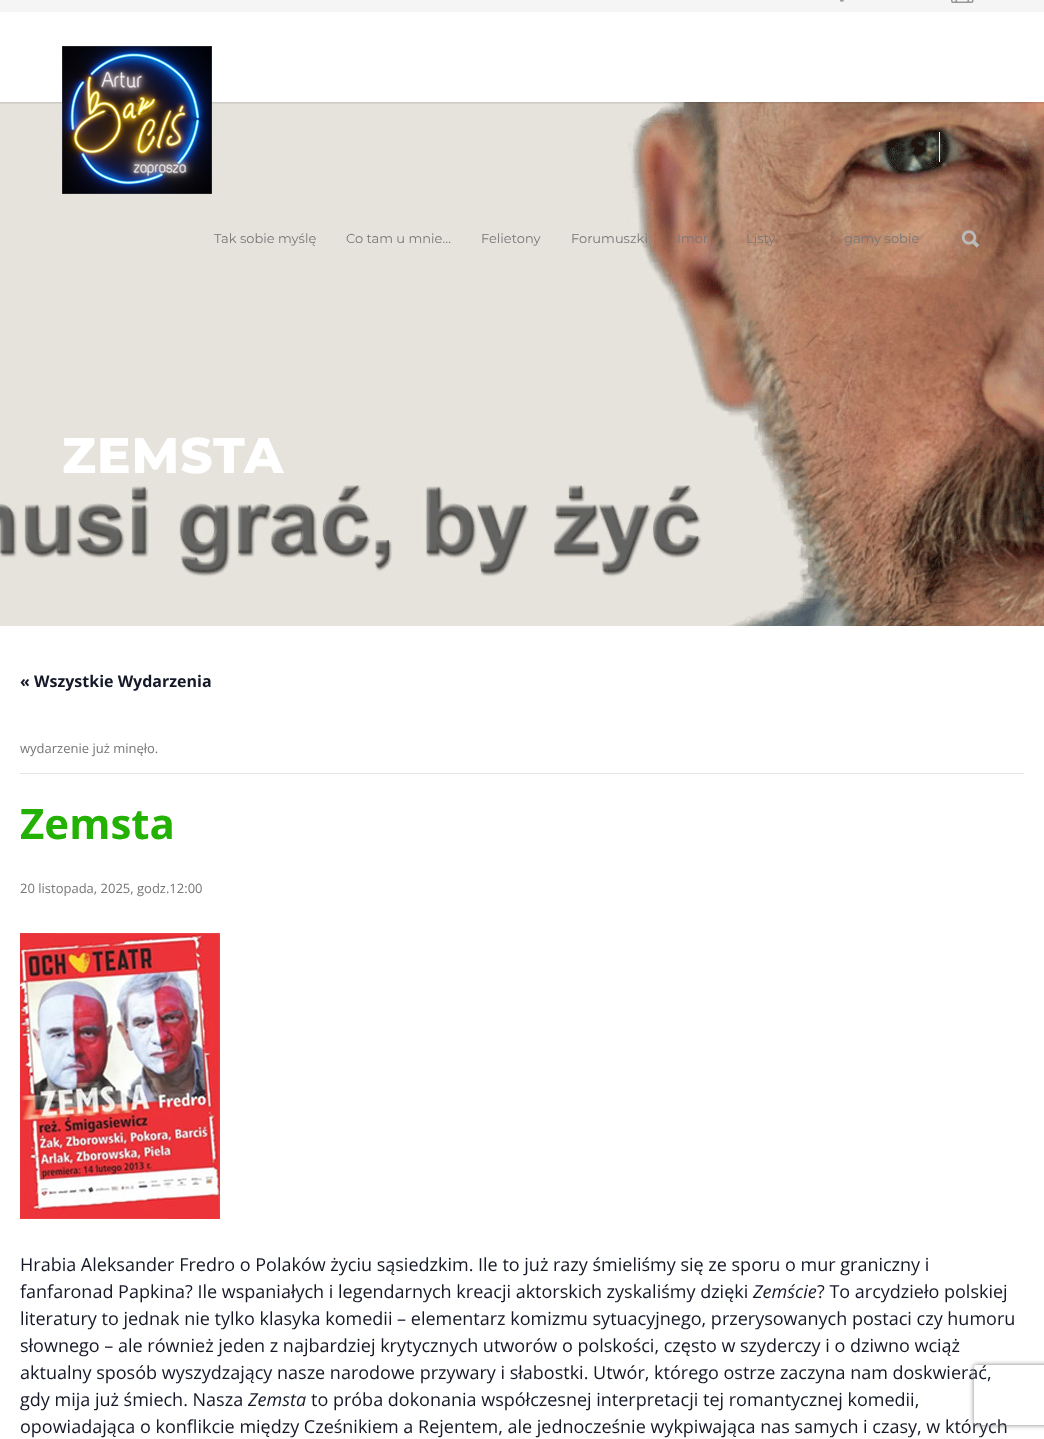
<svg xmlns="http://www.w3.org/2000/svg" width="1044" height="1439">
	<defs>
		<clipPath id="clip1"><rect x="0" y="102" width="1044" height="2" /></clipPath>
		<clipPath id="clip2"><path d="M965 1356H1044V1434H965ZM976 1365H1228C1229 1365 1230 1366 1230 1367V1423C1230 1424 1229 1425 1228 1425H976C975 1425 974 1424 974 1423V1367C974 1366 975 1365 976 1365Z" clip-rule="evenodd" /></clipPath>
	</defs>
	<rect width="100%" height="100%" fill="#FFFFFF" />
	<image x="0" y="102" width="1044" height="524" href="assets/img5.png" />
	<g clip-path="url(#clip1)">
		<rect x="-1" y="11" width="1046" height="92" fill="#000000" fill-opacity="0.16" filter="blur(1px)" />
	</g>
	<rect x="0" y="0" width="1044" height="12" fill="#F5F5F5" />
	<image x="840" y="0" width="4" height="2" href="assets/img1.png" />
	<image x="951" y="0" width="23" height="3" href="assets/img2.png" />
	<image x="62" y="46" width="150" height="148" href="assets/img3.png" />
	<g font-family="Montserrat" font-size="13" fill="#777777">
		<text x="214" y="243">Tak sobie myślę</text>
		<text x="346" y="243">Co tam u mnie…</text>
		<text x="481" y="243">Felietony</text>
		<text x="571" y="243">Forumuszki</text>
		<text x="677" y="243">Imor</text>
		<text x="746" y="243">Listy</text>
		<text x="844" y="243">gamy sobie</text>
	</g>
	<rect x="939" y="132" width="1" height="30" fill="#EFEFEF" />
	<image x="961" y="230" width="19" height="18" href="assets/img4.png" />
	<text x="62" y="473" font-family="Montserrat" font-size="50" font-weight="800" letter-spacing="1" fill="#FFFFFF">ZEMSTA</text>
	<text x="20" y="687" font-family="Open Sans" font-size="16" font-weight="700" fill="#141827">« Wszystkie Wydarzenia</text>
	<rect x="20" y="773" width="1004" height="1" fill="#E4E4E4" />
	<text x="20" y="753" font-family="Open Sans" font-size="13" fill="#777777">wydarzenie już minęło.</text>
	<text x="20" y="839" font-family="Open Sans" font-size="42" font-weight="700" fill="#23B203">Zemsta</text>
	<text x="20" y="893" font-family="Open Sans" font-size="13" fill="#777777">20 listopada, 2025, godz.12:00</text>
	<image x="20" y="933" width="200" height="286" href="assets/img6.png" />
	<g font-family="Open Sans" font-size="18" fill="#141827">
		<text x="20" y="1271">Hrabia Aleksander Fredro o Polaków życiu sąsiedzkim. Ile to już razy śmieliśmy się ze sporu o mur graniczny i</text>
		<text x="20" y="1298">fanfaronad Papkina? Ile wspaniałych i legendarnych kreacji aktorskich zyskaliśmy dzięki</text>
	</g>
	<text x="753" y="1298" font-family="Open Sans" font-size="18" font-style="italic" fill="#141827">Zemście</text>
	<g font-family="Open Sans" font-size="18" fill="#141827">
		<text x="817" y="1298">? To arcydzieło polskiej</text>
		<text x="20" y="1325">literatury to jednak nie tylko klasyka komedii – elementarz komizmu sytuacyjnego, przerysowanych postaci czy humoru</text>
		<text x="20" y="1352">słownego – ale również jeden z najbardziej krytycznych utworów o polskości, często w szyderczy i o dziwno wciąż</text>
		<text x="20" y="1379">aktualny sposób wyszydzający nasze narodowe przywary i słabostki. Utwór, którego ostrze zaczyna nam doskwierać,</text>
		<text x="20" y="1406">gdy mija już śmiech. Nasza</text>
	</g>
	<text x="248" y="1406" font-family="Open Sans" font-size="18" font-style="italic" fill="#141827">Zemsta</text>
	<g font-family="Open Sans" font-size="18" fill="#141827">
		<text x="311" y="1406">to próba dokonania współczesnej interpretacji tej romantycznej komedii,</text>
		<text x="20" y="1433">opowiadająca o konflikcie między Cześnikiem a Rejentem, ale jednocześnie wykpiwająca nas samych i czasy, w których</text>
	</g>
	<g clip-path="url(#clip2)">
		<rect x="974" y="1365" width="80" height="60" rx="2" fill="#808080" filter="blur(2.5px)" />
	</g>
</svg>
